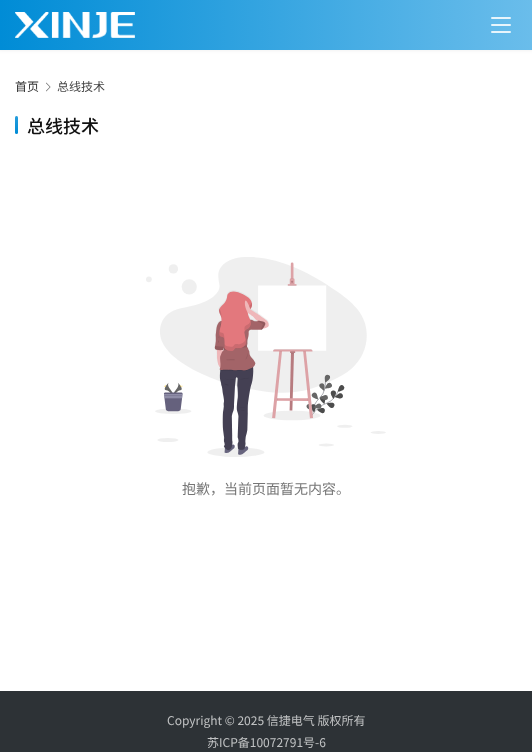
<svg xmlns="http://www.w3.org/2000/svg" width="532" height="752">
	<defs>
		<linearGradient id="g1" gradientUnits="userSpaceOnUse" x1="0" y1="25" x2="532" y2="25"><stop offset="0" stop-color="#008CD6" /><stop offset="1" stop-color="#6ABDEB" /></linearGradient>
		<linearGradient id="g2" gradientUnits="userSpaceOnUse" x1="17" y1="116" x2="17" y2="134"><stop offset="0" stop-color="#FFFFFF" stop-opacity="0.15" /><stop offset="1" stop-color="#FFFFFF" stop-opacity="0" /></linearGradient>
	</defs>
	<rect width="100%" height="100%" fill="#FFFFFF" />
	<rect x="-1" y="-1" width="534" height="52" fill="#1A1A1A" fill-opacity="0.06" filter="blur(1.5px)" />
	<rect x="0" y="0" width="532" height="50" fill="url(#g1)" />
	<image x="15" y="12" width="120" height="26" href="assets/img1.png" />
	<rect x="491" y="17" width="20" height="2" rx="1" fill="#FFFFFF" fill-opacity="0.85" />
	<rect x="491" y="24" width="20" height="2" rx="1" fill="#FFFFFF" fill-opacity="0.85" />
	<rect x="491" y="31" width="20" height="2" rx="1" fill="#FFFFFF" fill-opacity="0.85" />
	<text x="15" y="91" font-family="Noto Sans CJK SC" font-size="12" fill="#333333">首页</text>
	<image x="46" y="82" width="5" height="10" href="assets/img2.png" />
	<text x="57" y="91" font-family="Noto Sans CJK SC" font-size="12" fill="#474747">总线技术</text>
	<rect x="15" y="116" width="3" height="18" rx="1.5" fill="#008CD6" />
	<rect x="15" y="116" width="3" height="18" rx="1.5" fill="url(#g2)" />
	<text x="27" y="133" font-family="Noto Sans CJK SC" font-size="18" font-weight="500" fill="#111111">总线技术</text>
	<image x="146" y="257" width="240" height="200" href="assets/img3.png" />
	<text x="182" y="494" font-family="Noto Sans CJK SC" font-size="14" fill="#767676">抱歉，当前页面暂无内容。</text>
	<rect x="0" y="691" width="532" height="61" fill="#2D3236" />
	<g font-family="Noto Sans CJK SC" font-size="12" fill="#C0C2C3">
		<text x="167" y="725">Copyright © 2025 信捷电气 版权所有</text>
		<text x="207" y="747">苏ICP备10072791号-6</text>
	</g>
</svg>
